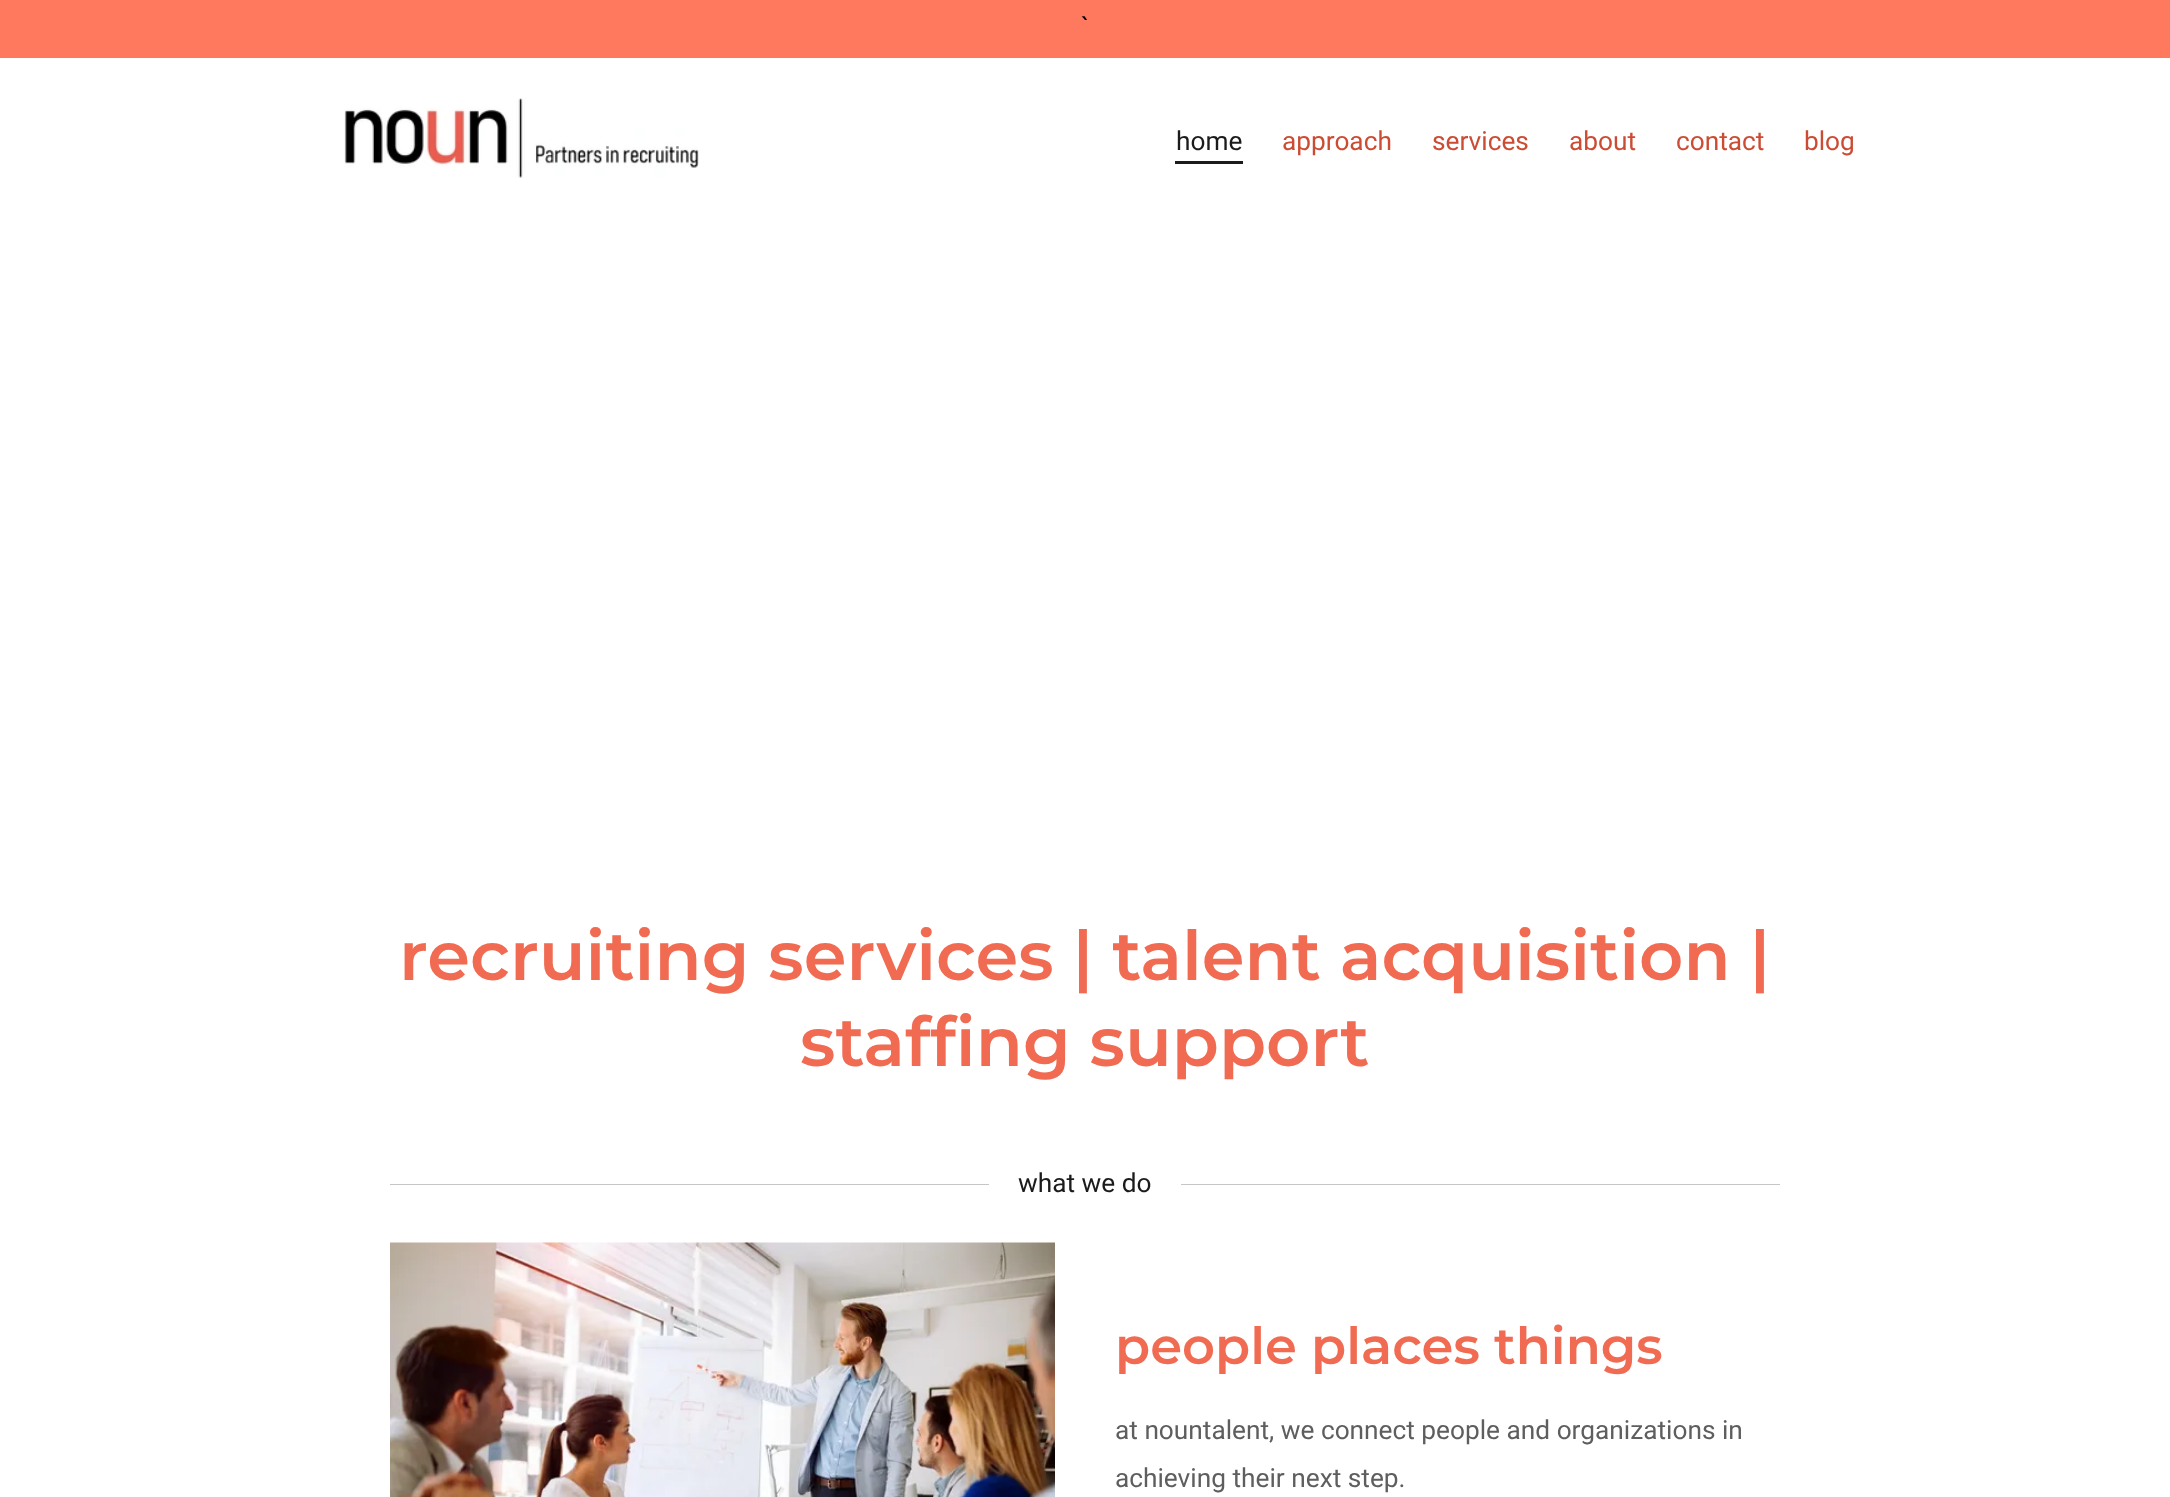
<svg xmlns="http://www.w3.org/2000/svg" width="2170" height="1497">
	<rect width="100%" height="100%" fill="#FFFFFF" />
	<rect x="0" y="0" width="2170" height="58" fill="#FF795F" />
	<text x="1081" y="36" font-family="Roboto" font-size="26.25" fill="#000000">`</text>
	<image x="344" y="98" width="355" height="80" href="assets/img1.png" />
	<rect x="1175" y="161" width="68" height="3" fill="#1B1B1B" />
	<text x="1176" y="150" font-family="Roboto" font-size="26.25" fill="#1B1B1B">home</text>
	<g font-family="Roboto" font-size="26.25" fill="#CC4C33">
		<text x="1282" y="150">approach</text>
		<text x="1432" y="150">services</text>
		<text x="1569" y="150">about</text>
		<text x="1676" y="150">contact</text>
		<text x="1804" y="150">blog</text>
	</g>
	<g font-family="Montserrat" font-size="68.75" font-weight="600" fill="#F06B51">
		<text x="399" y="980">recruiting services | talent acquisition |</text>
		<text x="800" y="1066">staffing support</text>
	</g>
	<rect x="390" y="1184" width="599" height="1" fill="#C6C6C6" />
	<text x="1018" y="1192" font-family="Roboto" font-size="26.25" fill="#1B1B1B">what we do</text>
	<rect x="1181" y="1184" width="599" height="1" fill="#C6C6C6" />
	<image x="390" y="1242" width="665" height="255" href="assets/img2.png" />
	<text x="1115" y="1364" font-family="Montserrat" font-size="51.25" font-weight="600" fill="#F06B51">people places things</text>
	<g font-family="Roboto" font-size="26.25" fill="#5E5E5E">
		<text x="1115" y="1439">at nountalent, we connect people and organizations in</text>
		<text x="1115" y="1487">achieving their next step.</text>
	</g>
</svg>
